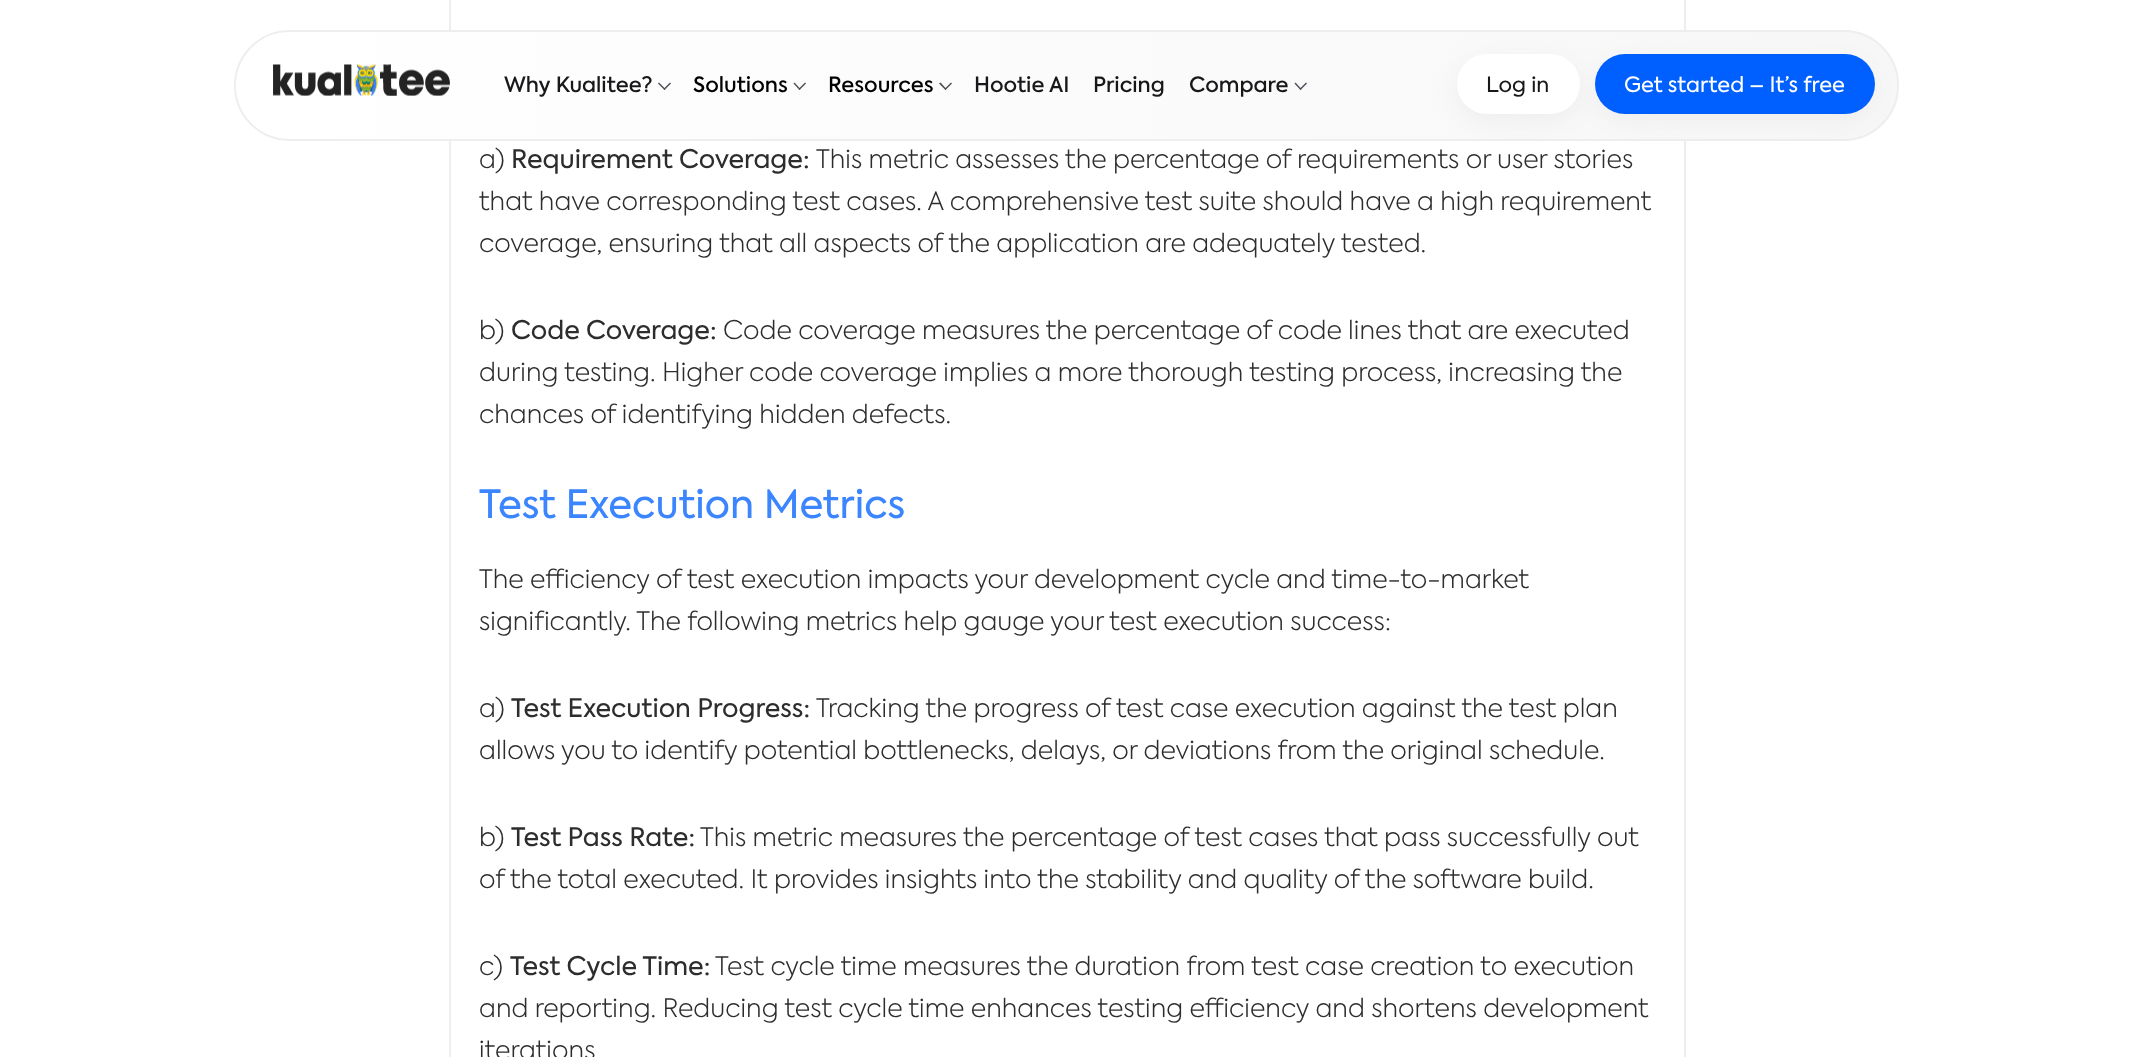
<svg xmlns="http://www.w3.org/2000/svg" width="2133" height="1057">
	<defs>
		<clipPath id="clip1"><rect x="234" y="30" width="1665" height="111" rx="55.5" /></clipPath>
		<linearGradient id="g1" gradientUnits="userSpaceOnUse" x1="236" y1="86" x2="1898" y2="85"><stop offset="0" stop-color="#FFFFFF" /><stop offset="1" stop-color="#F7F7F8" /></linearGradient>
	</defs>
	<rect width="100%" height="100%" fill="#FFFFFF" />
	<rect x="450" y="-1" width="1235" height="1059" fill="none" stroke="#EEEEEE" stroke-width="2" />
	<g clip-path="url(#clip1)">
		<rect x="236" y="30" width="1662" height="111" fill="url(#g1)" />
	</g>
	<rect x="235" y="31" width="1663" height="109" rx="54.5" fill="none" stroke="#EEEEEE" stroke-width="2" />
	<image x="273" y="64" width="177" height="32" href="assets/img1.png" />
	<text x="504" y="92" font-family="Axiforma" font-size="21" font-weight="500" fill="#18181B">Why Kualitee?</text>
	<path d="M663.5 89L670 82.5L671 83.5L664.5 90Z" fill="#4C4E56" />
	<path d="M658 83.5L659 82.5L665.5 89L664.5 90Z" fill="#4C4E56" />
	<text x="693" y="92" font-family="Axiforma" font-size="21" font-weight="500" fill="#000000">Solutions</text>
	<path d="M798.5 89L805 82.5L806 83.5L799.5 90Z" fill="#4C4E56" />
	<path d="M793.5 83.5L794.5 82.5L800.5 89L799.5 90Z" fill="#4C4E56" />
	<text x="828" y="92" font-family="Axiforma" font-size="21" font-weight="500" fill="#000000">Resources</text>
	<path d="M944.5 89L951 82.5L952 83.5L945.5 90Z" fill="#4C4E56" />
	<path d="M939 83.5L940.5 82.5L946.5 89L945.5 90Z" fill="#4C4E56" />
	<g font-family="Axiforma" font-size="21" font-weight="500" fill="#18181B">
		<text x="974" y="92">Hootie AI</text>
		<text x="1093" y="92">Pricing</text>
		<text x="1189" y="92">Compare</text>
	</g>
	<path d="M1299.5 89L1306 82.5L1307 83.5L1300.5 90Z" fill="#4C4E56" />
	<path d="M1294.5 83.5L1295.5 82.5L1301.5 89L1300.5 90Z" fill="#4C4E56" />
	<rect x="1457" y="62" width="123" height="60" rx="30" fill="#EEEEEE" filter="blur(11px)" />
	<rect x="1457" y="54" width="123" height="60" rx="30" fill="#FFFFFF" />
	<text x="1486" y="92" font-family="Axiforma" font-size="21" fill="#18181B">Log in</text>
	<rect x="1595" y="62" width="280" height="60" rx="30" fill="#EEEEEE" filter="blur(11px)" />
	<rect x="1595" y="54" width="280" height="60" rx="30" fill="#0060FF" />
	<text x="1624" y="92" font-family="Axiforma" font-size="21" fill="#FFFFFF">Get started – It’s free</text>
	<text x="479" y="168" font-family="Axiforma" font-size="25.5" font-weight="300" fill="#2D2D2D">a)</text>
	<text x="511" y="168" font-family="Axiforma" font-size="25.5" fill="#2D2D2D">Requirement Coverage:</text>
	<g font-family="Axiforma" font-size="25.5" font-weight="300" fill="#2D2D2D">
		<text x="816" y="168">This metric assesses the percentage of requirements or user stories</text>
		<text x="479" y="210">that have corresponding test cases. A comprehensive test suite should have a high requirement</text>
		<text x="479" y="252">coverage, ensuring that all aspects of the application are adequately tested.</text>
		<text x="479" y="339">b)</text>
	</g>
	<text x="511" y="339" font-family="Axiforma" font-size="25.5" fill="#2D2D2D">Code Coverage:</text>
	<g font-family="Axiforma" font-size="25.5" font-weight="300" fill="#2D2D2D">
		<text x="723" y="339">Code coverage measures the percentage of code lines that are executed</text>
		<text x="479" y="381">during testing. Higher code coverage implies a more thorough testing process, increasing the</text>
		<text x="479" y="423">chances of identifying hidden defects.</text>
	</g>
	<text x="479" y="518" font-family="Axiforma" font-size="39" fill="#3B85FF">Test Execution Metrics</text>
	<g font-family="Axiforma" font-size="25.5" font-weight="300" fill="#2D2D2D">
		<text x="479" y="588">The efficiency of test execution impacts your development cycle and time-to-market</text>
		<text x="479" y="630">significantly. The following metrics help gauge your test execution success:</text>
		<text x="479" y="717">a)</text>
	</g>
	<text x="511" y="717" font-family="Axiforma" font-size="25.5" fill="#2D2D2D">Test Execution Progress:</text>
	<g font-family="Axiforma" font-size="25.5" font-weight="300" fill="#2D2D2D">
		<text x="816" y="717">Tracking the progress of test case execution against the test plan</text>
		<text x="479" y="759">allows you to identify potential bottlenecks, delays, or deviations from the original schedule.</text>
		<text x="479" y="846">b)</text>
	</g>
	<text x="511" y="846" font-family="Axiforma" font-size="25.5" fill="#2D2D2D">Test Pass Rate:</text>
	<g font-family="Axiforma" font-size="25.5" font-weight="300" fill="#2D2D2D">
		<text x="700" y="846">This metric measures the percentage of test cases that pass successfully out</text>
		<text x="479" y="888">of the total executed. It provides insights into the stability and quality of the software build.</text>
		<text x="479" y="975">c)</text>
	</g>
	<text x="510" y="975" font-family="Axiforma" font-size="25.5" fill="#2D2D2D">Test Cycle Time:</text>
	<g font-family="Axiforma" font-size="25.5" font-weight="300" fill="#2D2D2D">
		<text x="715" y="975">Test cycle time measures the duration from test case creation to execution</text>
		<text x="479" y="1017">and reporting. Reducing test cycle time enhances testing efficiency and shortens development</text>
		<text x="479" y="1059">iterations</text>
	</g>
</svg>
